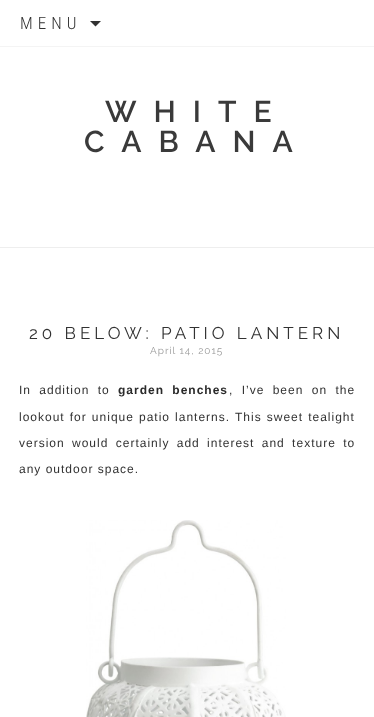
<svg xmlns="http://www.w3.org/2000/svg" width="374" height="717">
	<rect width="100%" height="100%" fill="#FFFFFF" />
	<rect x="0" y="46" width="374" height="1" fill="#F4F4F4" />
	<text x="20" y="29" font-family="Roboto Condensed" font-size="17" font-weight="300" letter-spacing="5" fill="#323232">MENU</text>
	<path d="M90 21L95.5 26.5L101 21Z" fill="#323232" />
	<rect x="0" y="247" width="374" height="1" fill="#EEEEEE" />
	<g font-family="Raleway" font-size="30" font-weight="600" letter-spacing="17" fill="#3A3A3A">
		<text x="105" y="122">WHITE</text>
		<text x="84" y="152">CABANA</text>
	</g>
	<text x="29" y="339" font-family="Raleway" font-size="17" letter-spacing="4" fill="#323232">20 BELOW: PATIO LANTERN</text>
	<text x="150" y="354" font-family="Raleway" font-size="10" letter-spacing="1" fill="#9A9A9A">April 14, 2015</text>
	<text x="19" y="394" word-spacing="4" font-family="Liberation Sans" font-size="12" letter-spacing="1" fill="#323232">In addition to</text>
	<text x="118" y="394" word-spacing="4" font-family="Liberation Sans" font-size="12" font-weight="700" letter-spacing="1" fill="#2A2A2A">garden benches</text>
	<g font-family="Liberation Sans" font-size="12" letter-spacing="1" fill="#323232">
		<text x="229" y="394" word-spacing="4">, I’ve been on the</text>
		<text x="19" y="421" word-spacing="0.75">lookout for unique patio lanterns. This sweet tealight</text>
		<text x="19" y="447" word-spacing="3">version would certainly add interest and texture to</text>
		<text x="19" y="473">any outdoor space.</text>
	</g>
	<image x="86" y="520" width="200" height="197" href="assets/img1.png" />
</svg>
